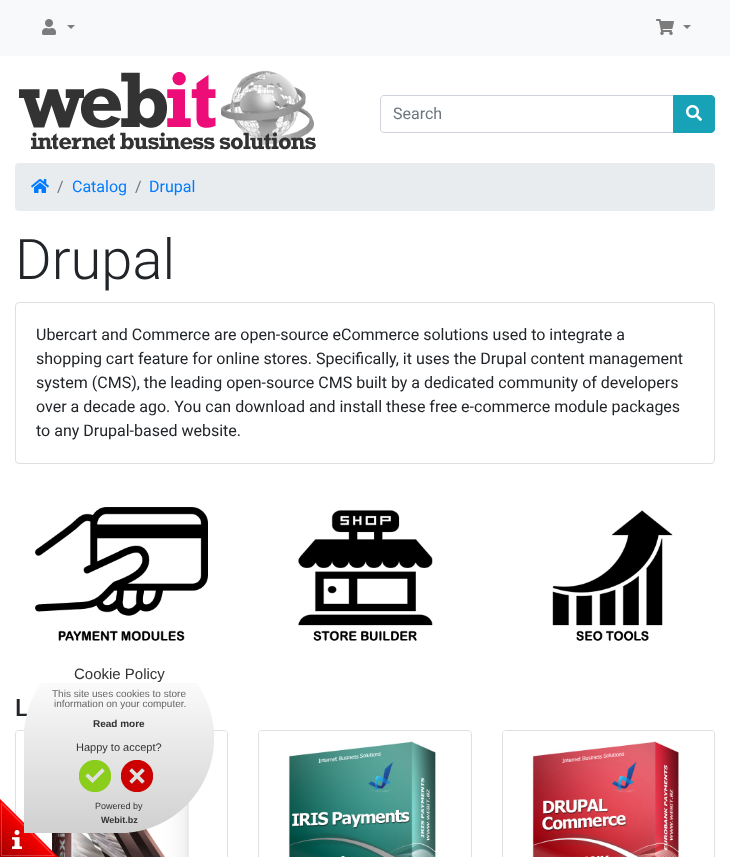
<svg xmlns="http://www.w3.org/2000/svg" width="730" height="857">
	<rect width="100%" height="100%" fill="#FFFFFF" />
	<rect x="0" y="0" width="730" height="56" fill="#F8F9FA" />
	<image x="42" y="19" width="14" height="16" href="assets/img1.png" />
	<path d="M67 25H75L71 29Z" fill="#7C7D7D" />
	<image x="656" y="19" width="18" height="16" href="assets/img2.png" />
	<path d="M683 25H691L687 29Z" fill="#7C7D7D" />
	<image x="19" y="70" width="297" height="80" href="assets/img3.png" />
	<path d="M384 95.5H673.5V132.5H384C382 132.5 380.5 131 380.5 129V99C380.5 97 382 95.5 384 95.5Z" fill="none" stroke="#CED4DA" />
	<text x="393" y="119" font-family="Roboto" font-size="16" fill="#6C757D">Search</text>
	<path d="M673.5 95.5H711C713 95.5 714.5 97 714.5 99V129C714.5 131 713 132.5 711 132.5H673.5Z" fill="#17A2B8" stroke="#17A2B8" />
	<image x="686" y="105" width="16" height="16" href="assets/img4.png" />
	<rect x="15" y="163" width="700" height="48" rx="4" fill="#E9ECEF" />
	<image x="31" y="179" width="18" height="14" href="assets/img5.png" />
	<text x="57" y="192" font-family="Roboto" font-size="16" fill="#6C757D">/</text>
	<text x="72" y="192" font-family="Roboto" font-size="16" fill="#007BFF">Catalog</text>
	<text x="135" y="192" font-family="Roboto" font-size="16" fill="#6C757D">/</text>
	<text x="149" y="192" font-family="Roboto" font-size="16" fill="#007BFF">Drupal</text>
	<text x="15" y="279" font-family="Roboto" font-size="56" font-weight="300" fill="#212529">Drupal</text>
	<rect x="15.5" y="302.5" width="699" height="161" rx="3.5" fill="none" stroke="#DFDFDF" />
	<g font-family="Roboto" font-size="16" fill="#212529">
		<text x="36" y="340">Ubercart and Commerce are open-source eCommerce solutions used to integrate a</text>
		<text x="36" y="364">shopping cart feature for online stores. Specifically, it uses the Drupal content management</text>
		<text x="36" y="388">system (CMS), the leading open-source CMS built by a dedicated community of developers</text>
		<text x="36" y="412">over a decade ago. You can download and install these free e-commerce module packages</text>
		<text x="36" y="436">to any Drupal-based website.</text>
	</g>
	<image x="35" y="507" width="173" height="134" href="assets/img6.png" />
	<image x="298" y="510" width="135" height="131" href="assets/img7.png" />
	<image x="552" y="510" width="121" height="131" href="assets/img8.png" />
	<text x="15" y="716" font-family="Roboto" font-size="24" font-weight="500" fill="#212529">L</text>
	<rect x="15.5" y="730.5" width="212" height="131" rx="3.5" fill="none" stroke="#DFDFDF" />
	<image x="16" y="731" width="211" height="126" href="assets/img9.png" />
	<rect x="258.5" y="730.5" width="213" height="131" rx="3.5" fill="none" stroke="#DFDFDF" />
	<image x="259" y="731" width="212" height="126" href="assets/img10.png" />
	<rect x="502.5" y="730.5" width="212" height="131" rx="3.5" fill="none" stroke="#DFDFDF" />
	<image x="503" y="731" width="211" height="126" href="assets/img11.png" />
	<image x="0" y="799" width="58" height="58" href="assets/img12.png" />
	<image x="24" y="683" width="190" height="150" href="assets/img13.png" />
	<text x="74" y="679" font-family="Liberation Sans" font-size="15" fill="#333333">Cookie Policy</text>
	<g font-family="Liberation Sans" font-size="10" fill="#666666">
		<text x="52" y="697">This site uses cookies to store</text>
		<text x="54" y="707">information on your computer.</text>
	</g>
	<text x="93" y="727" font-family="Liberation Sans" font-size="10" font-weight="700" fill="#333333">Read more</text>
	<text x="76" y="751" font-family="Liberation Sans" font-size="11" fill="#333333">Happy to accept?</text>
	<image x="79" y="760" width="32" height="32" href="assets/img14.png" />
	<image x="121" y="760" width="32" height="32" href="assets/img15.png" />
	<text x="95" y="809" font-family="Liberation Sans" font-size="9" fill="#333333">Powered by</text>
	<text x="101" y="823" font-family="Liberation Sans" font-size="9" font-weight="700" fill="#333333">Webit.bz</text>
</svg>
